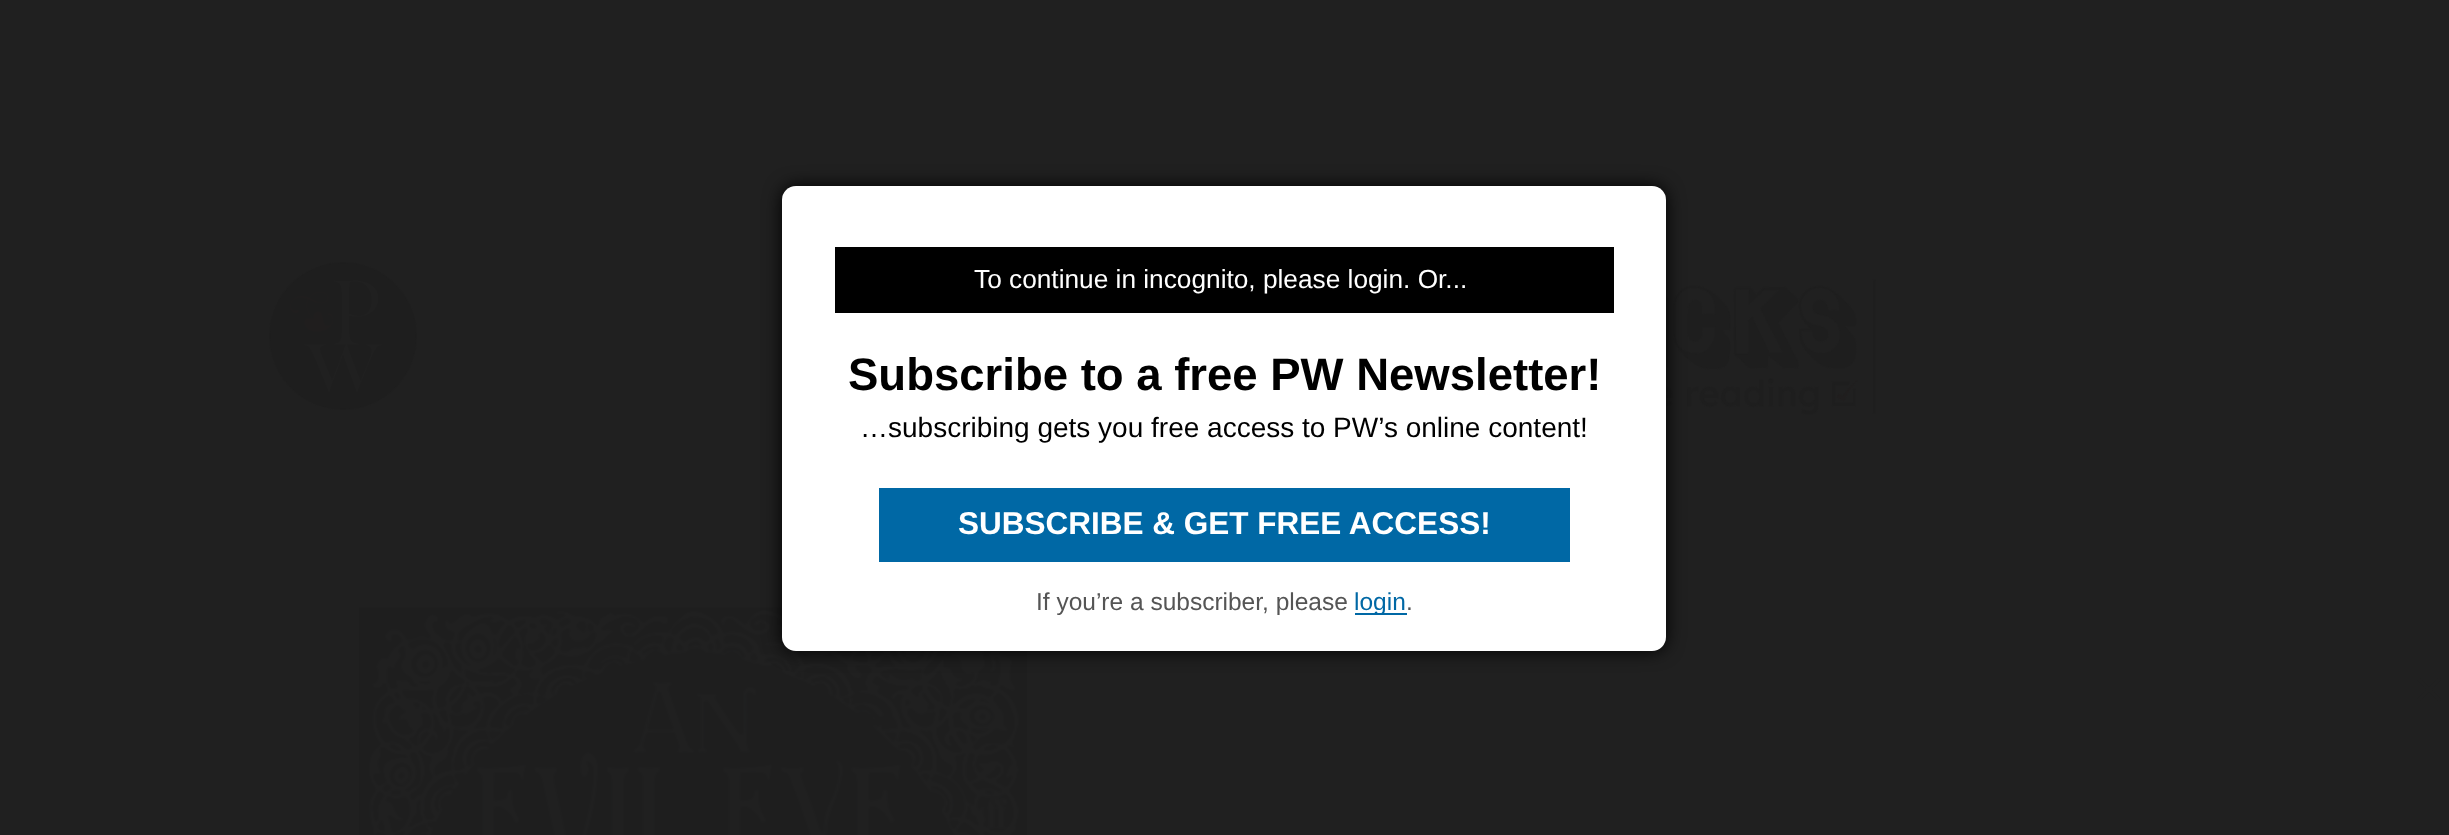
<svg xmlns="http://www.w3.org/2000/svg" width="2449" height="835">
	<rect width="100%" height="100%" fill="#202020" />
	<image x="269" y="262" width="148" height="148" href="assets/img1.png" />
	<image x="1666" y="279" width="210" height="136" href="assets/img2.png" />
	<image x="358" y="607" width="670" height="228" href="assets/img3.png" />
	<image x="2416" y="677" width="26" height="25" href="assets/img4.png" />
	<rect x="782" y="186" width="884" height="465" rx="14" fill="#000000" filter="blur(9px)" />
	<rect x="782" y="186" width="884" height="465" rx="14" fill="#FFFFFF" />
	<rect x="835" y="247" width="779" height="66" fill="#000000" />
	<text x="974" y="288" font-family="Liberation Sans" font-size="26.25" fill="#FFFFFF">To continue in incognito, please login. Or...</text>
	<text x="848" y="390" font-family="Liberation Sans" font-size="45.5" font-weight="700" fill="#000000">Subscribe to a free PW Newsletter!</text>
	<text x="860" y="437" font-family="Liberation Sans" font-size="28" fill="#000000">…subscribing gets you free access to PW’s online content!</text>
	<rect x="879" y="488" width="691" height="74" fill="#0068A5" />
	<text x="958" y="534" font-family="Liberation Sans" font-size="31.5" font-weight="700" fill="#FFFFFF">SUBSCRIBE &amp; GET FREE ACCESS!</text>
	<text x="1036" y="610" font-family="Liberation Sans" font-size="24.5" fill="#555555">If you’re a subscriber, please</text>
	<rect x="1355" y="613" width="52" height="2" fill="#0068A5" />
	<text x="1354" y="610" font-family="Liberation Sans" font-size="24.5" fill="#0068A5">login</text>
	<text x="1406" y="610" font-family="Liberation Sans" font-size="24.5" fill="#555555">.</text>
</svg>
